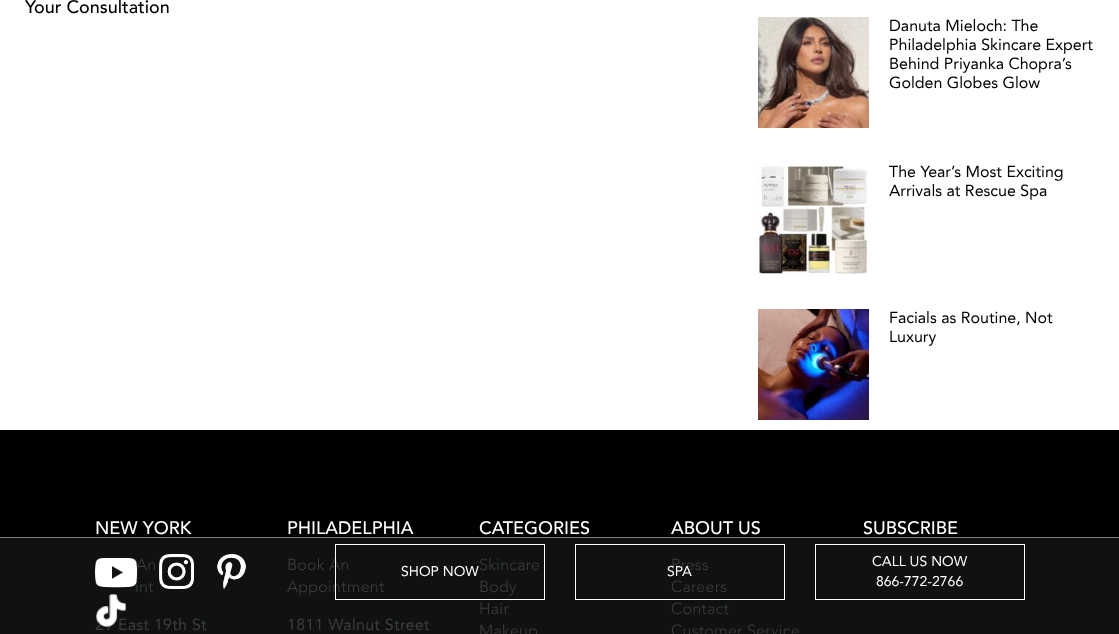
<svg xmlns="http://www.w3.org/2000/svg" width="1119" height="634">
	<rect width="100%" height="100%" fill="#FFFFFF" />
	<text x="25" y="13" font-family="Avenir" font-size="18" font-weight="500" fill="#000000">Your Consultation</text>
	<image x="758" y="17" width="111" height="111" href="assets/img1.png" />
	<g font-family="Avenir" font-size="16" fill="#000000">
		<text x="889" y="31">Danuta Mieloch: The</text>
		<text x="889" y="50">Philadelphia Skincare Expert</text>
		<text x="889" y="69">Behind Priyanka Chopra’s</text>
		<text x="889" y="88">Golden Globes Glow</text>
	</g>
	<image x="758" y="163" width="111" height="111" href="assets/img2.png" />
	<g font-family="Avenir" font-size="16" fill="#000000">
		<text x="889" y="177">The Year’s Most Exciting</text>
		<text x="889" y="196">Arrivals at Rescue Spa</text>
	</g>
	<image x="758" y="309" width="111" height="111" href="assets/img3.png" />
	<g font-family="Avenir" font-size="16" fill="#000000">
		<text x="889" y="323">Facials as Routine, Not</text>
		<text x="889" y="342">Luxury</text>
	</g>
	<rect x="0" y="430" width="1119" height="107" fill="#000000" />
	<rect x="0" y="538" width="1119" height="96" fill="#0F1112" />
	<text x="95" y="534" font-family="Avenir" font-size="18" font-weight="500" fill="#FFFFFF">NEW YORK</text>
	<g font-family="Avenir" font-size="16" font-weight="300" letter-spacing="0.25" fill="#3C3D3E">
		<text x="136" y="570">An</text>
		<text x="135" y="592">int</text>
	</g>
	<text x="95" y="630" font-family="Avenir" font-size="16" letter-spacing="0.25" fill="#3C3D3E">29 East 19th St</text>
	<text x="287" y="534" font-family="Avenir" font-size="18" font-weight="500" fill="#FFFFFF">PHILADELPHIA</text>
	<g font-family="Avenir" font-size="16" font-weight="300" letter-spacing="0.25" fill="#3C3D3E">
		<text x="287" y="570">Book An</text>
		<text x="287" y="592">Appointment</text>
	</g>
	<text x="287" y="630" font-family="Avenir" font-size="16" letter-spacing="0.25" fill="#3C3D3E">1811 Walnut Street</text>
	<text x="479" y="534" font-family="Avenir" font-size="18" font-weight="500" fill="#FFFFFF">CATEGORIES</text>
	<g font-family="Avenir" font-size="16" font-weight="300" letter-spacing="0.25" fill="#3C3D3E">
		<text x="479" y="570">Skincare</text>
		<text x="479" y="592">Body</text>
		<text x="479" y="614">Hair</text>
		<text x="479" y="636">Makeup</text>
	</g>
	<text x="671" y="534" font-family="Avenir" font-size="18" font-weight="500" fill="#FFFFFF">ABOUT US</text>
	<g font-family="Avenir" font-size="16" font-weight="300" letter-spacing="0.25" fill="#3C3D3E">
		<text x="671" y="570">Press</text>
		<text x="671" y="592">Careers</text>
		<text x="671" y="614">Contact</text>
		<text x="671" y="636">Customer Service</text>
	</g>
	<text x="863" y="534" font-family="Avenir" font-size="18" font-weight="500" fill="#FFFFFF">SUBSCRIBE</text>
	<rect x="0" y="537" width="1119" height="1" fill="#7C7C7C" />
	<image x="95" y="558" width="43" height="30" href="assets/img4.png" />
	<image x="159" y="554" width="35" height="35" href="assets/img5.png" />
	<image x="217" y="554" width="29" height="35" href="assets/img6.png" />
	<image x="96" y="594" width="30" height="33" href="assets/img7.png" />
	<rect x="335.5" y="544.5" width="209" height="55" fill="none" stroke="#FFFFFF" />
	<text x="401" y="576" font-family="Avenir" font-size="14" fill="#FFFFFF">SHOP NOW</text>
	<rect x="575.5" y="544.5" width="209" height="55" fill="none" stroke="#FFFFFF" />
	<text x="667" y="576" font-family="Avenir" font-size="14" fill="#FFFFFF">SPA</text>
	<rect x="815.5" y="544.5" width="209" height="55" fill="none" stroke="#FFFFFF" />
	<g font-family="Avenir" font-size="14" fill="#FFFFFF">
		<text x="872" y="566">CALL US NOW</text>
		<text x="876" y="586">866-772-2766</text>
	</g>
</svg>
